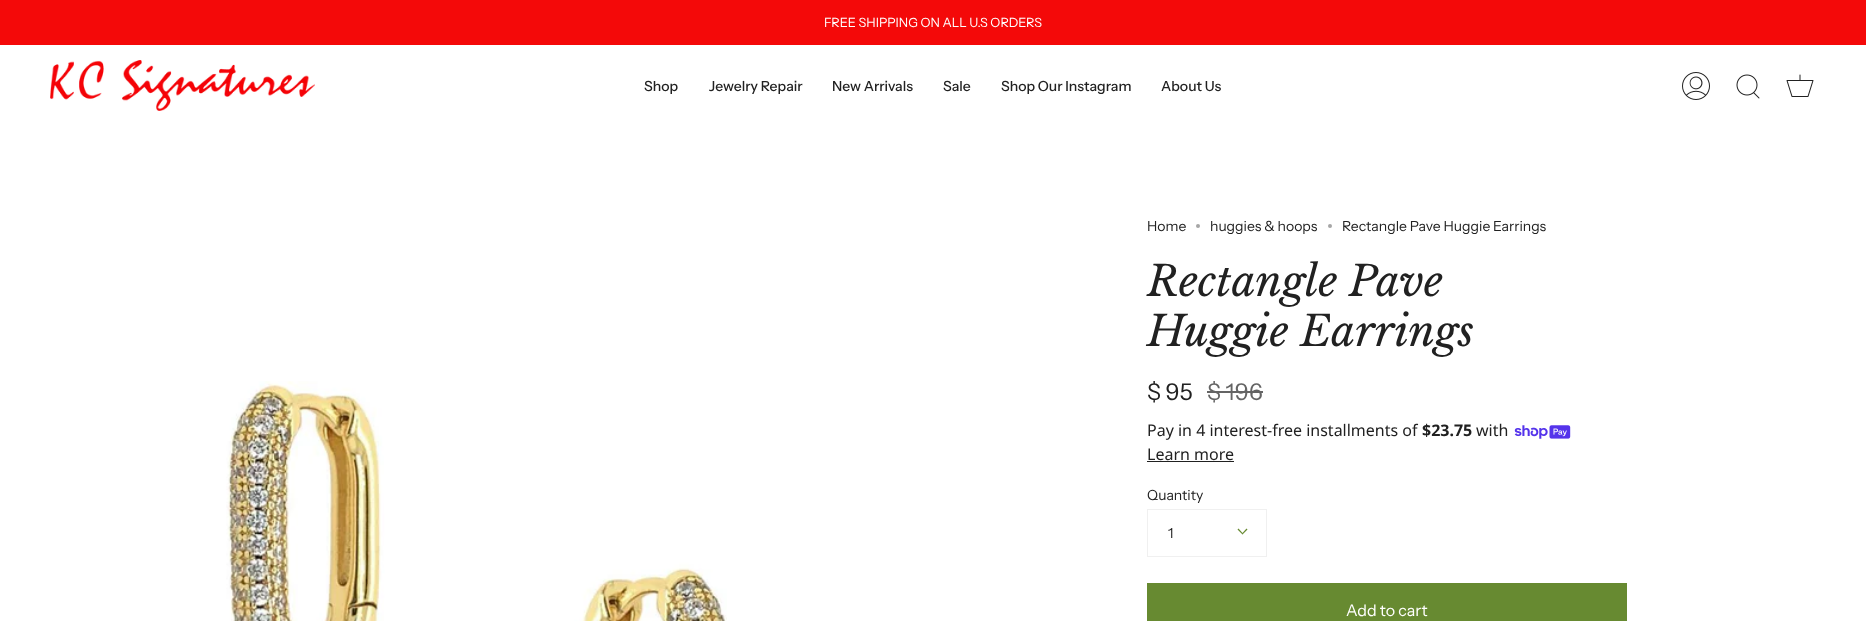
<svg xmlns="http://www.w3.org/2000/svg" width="1866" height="621">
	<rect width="100%" height="100%" fill="#FFFFFF" />
	<rect x="0" y="0" width="1866" height="45" fill="#F40909" />
	<text x="824" y="27" font-family="Instrument Sans" font-size="12.75" fill="#FFFFFF">FREE SHIPPING ON ALL U.S ORDERS</text>
	<image x="50" y="60" width="265" height="51" href="assets/img1.png" />
	<g font-family="Instrument Sans" font-size="14" font-weight="500" fill="#212121">
		<text x="644" y="91">Shop</text>
		<text x="709" y="91">Jewelry Repair</text>
		<text x="832" y="91">New Arrivals</text>
		<text x="943" y="91">Sale</text>
		<text x="1001" y="91">Shop Our Instagram</text>
		<text x="1161" y="91">About Us</text>
	</g>
	<image x="1682" y="72" width="28" height="28" href="assets/img2.png" />
	<image x="1736" y="74" width="24" height="25" href="assets/img3.png" />
	<image x="1786" y="74" width="28" height="23" href="assets/img4.png" />
	<image x="226" y="381" width="501" height="240" href="assets/img5.png" />
	<text x="1147" y="231" font-family="Instrument Sans" font-size="14" fill="#212121">Home</text>
	<circle cx="1198" cy="226" r="2" fill="#A6A6A6" />
	<text x="1210" y="231" font-family="Instrument Sans" font-size="14" fill="#212121">huggies &amp; hoops</text>
	<circle cx="1330" cy="226" r="2" fill="#A6A6A6" />
	<text x="1342" y="231" font-family="Instrument Sans" font-size="14" fill="#212121">Rectangle Pave Huggie Earrings</text>
	<g font-family="Libre Baskerville" font-size="42" font-style="italic" fill="#212121">
		<text x="1147" y="296">Rectangle Pave</text>
		<text x="1147" y="346">Huggie Earrings</text>
	</g>
	<text x="1147" y="400" font-family="Instrument Sans" font-size="23" fill="#212121">$ 95</text>
	<text x="1207" y="400" font-family="Instrument Sans" font-size="23" fill="#646464">$ 196</text>
	<rect x="1207" y="391" width="56" height="2" fill="#646464" />
	<text x="1147" y="436" font-family="Noto Sans" font-size="16" fill="#212121">Pay in 4 interest-free installments of</text>
	<text x="1422" y="436" font-family="Noto Sans" font-size="16" font-weight="700" fill="#212121">$23.75</text>
	<text x="1476" y="436" font-family="Noto Sans" font-size="16" fill="#212121">with</text>
	<image x="1514" y="425" width="57" height="14" href="assets/img6.png" />
	<text x="1147" y="460" font-family="Noto Sans" font-size="16" fill="#212121">Learn more</text>
	<rect x="1147" y="461" width="87" height="1" fill="#212121" />
	<text x="1147" y="500" font-family="Instrument Sans" font-size="14" fill="#212121">Quantity</text>
	<rect x="1147.5" y="509.5" width="119" height="47" fill="none" stroke="#F0F0F0" />
	<text x="1168" y="538" font-family="Instrument Sans" font-size="14" fill="#212121">1</text>
	<path d="M1242 533.5L1246.5 528.5L1247.5 529.5L1242.5 534.5Z" fill="#678A31" />
	<path d="M1237.5 529.5L1238.5 528.5L1243 533.5L1242.5 534.5Z" fill="#678A31" />
	<rect x="1147" y="583" width="480" height="38" fill="#678A31" />
	<text x="1346" y="616" font-family="Instrument Sans" font-size="16" fill="#FFFFFF">Add to cart</text>
</svg>
